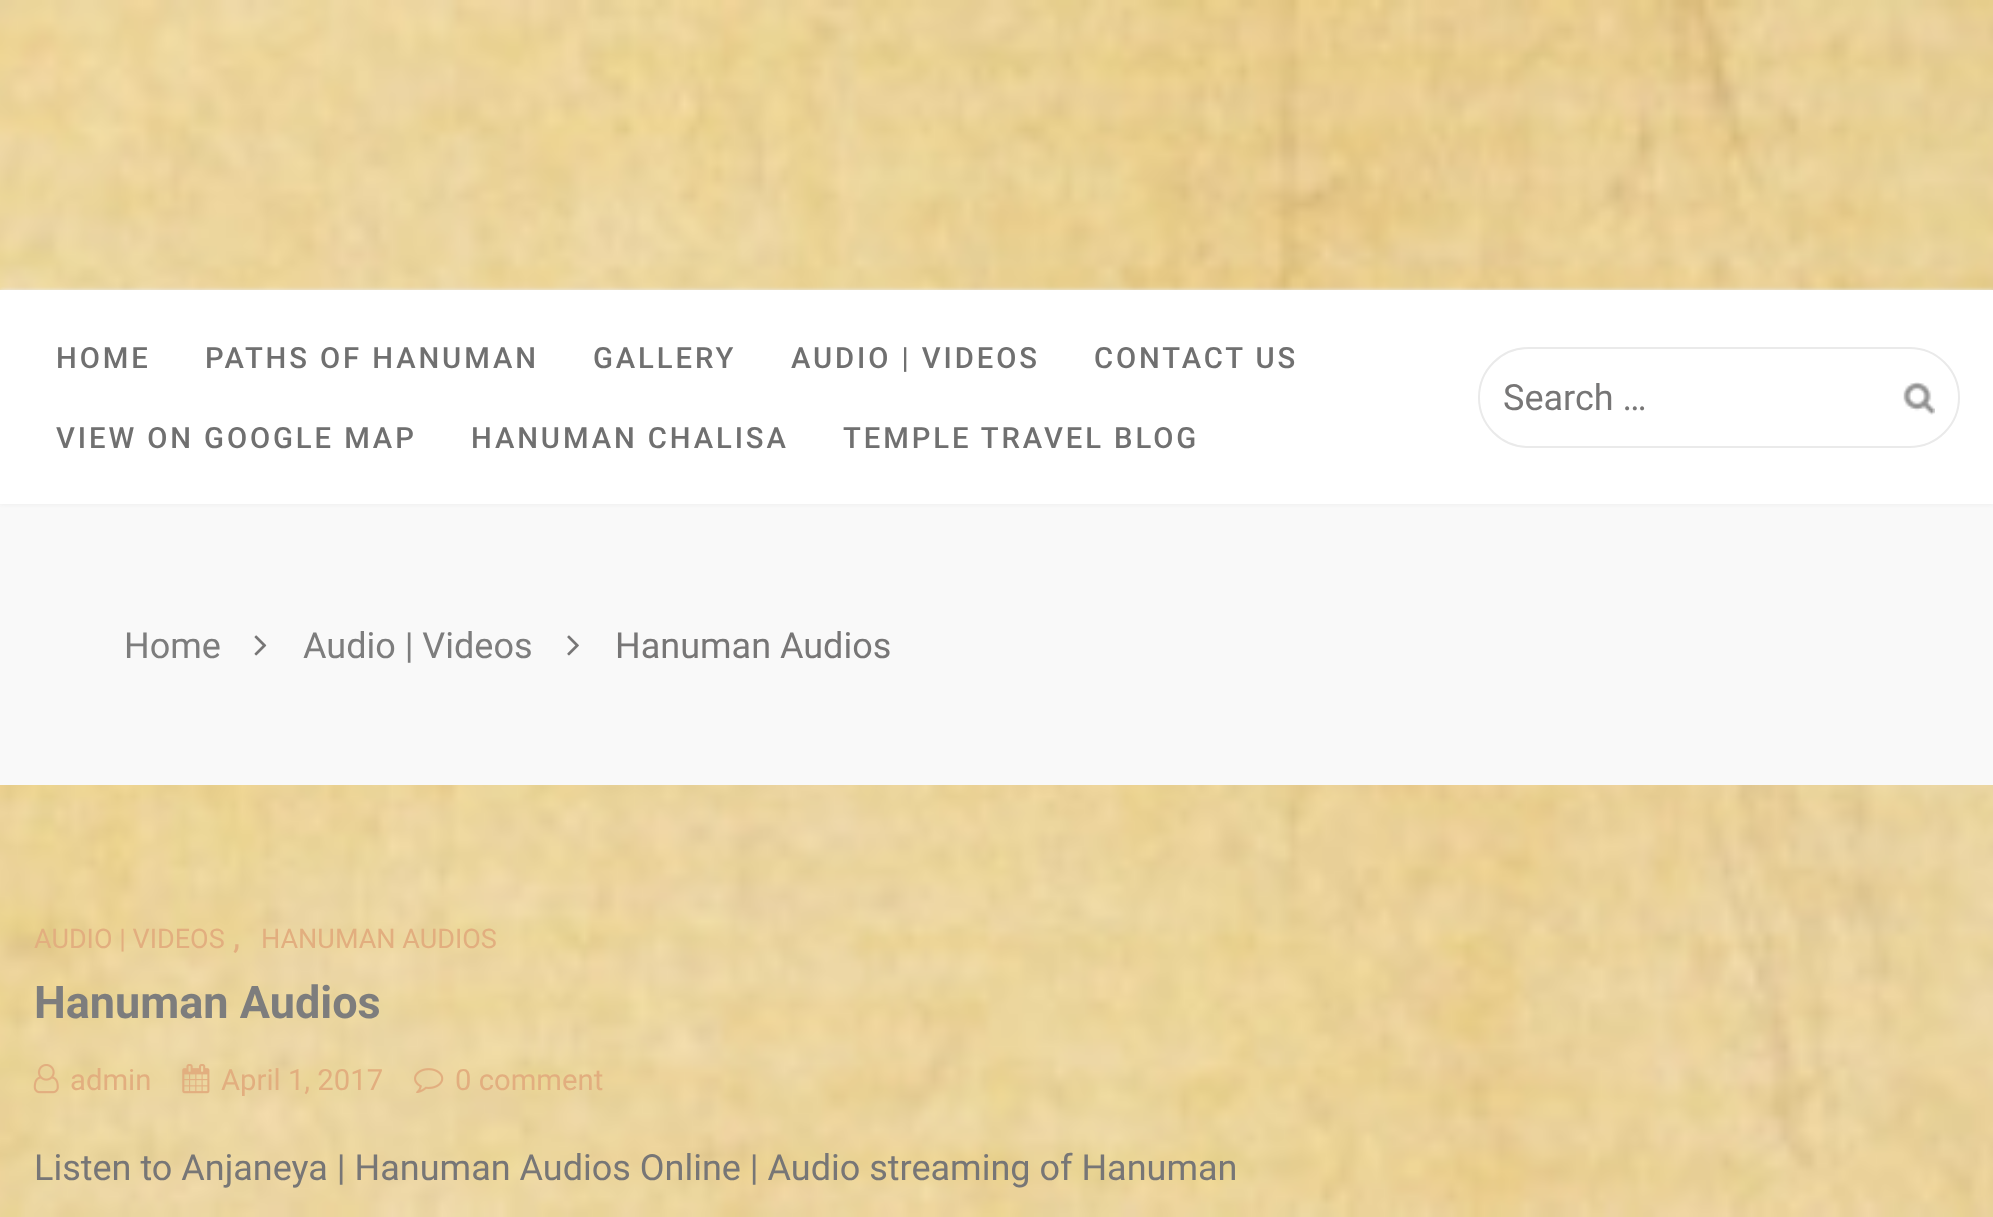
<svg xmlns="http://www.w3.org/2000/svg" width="1993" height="1217">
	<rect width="100%" height="100%" fill="#FFFFFF" />
	<image x="0" y="0" width="1993" height="1217" href="assets/img1.png" />
	<rect x="0" y="504" width="1993" height="281" fill="#F9F9F9" />
	<rect x="0" y="290" width="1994" height="214" fill="#EBEBEB" filter="blur(2px)" />
	<rect x="0" y="290" width="1993" height="214" fill="#FFFFFF" />
	<g font-family="Roboto" font-size="29.25" font-weight="500" letter-spacing="2.9" fill="#707070">
		<text x="56" y="368">HOME</text>
		<text x="205" y="368">PATHS OF HANUMAN</text>
		<text x="593" y="368">GALLERY</text>
		<text x="791" y="368">AUDIO | VIDEOS</text>
		<text x="1094" y="368">CONTACT US</text>
		<text x="56" y="448">VIEW ON GOOGLE MAP</text>
		<text x="471" y="448">HANUMAN CHALISA</text>
		<text x="843" y="448">TEMPLE TRAVEL BLOG</text>
	</g>
	<rect x="1479" y="348" width="480" height="99" rx="49.5" fill="none" stroke="#EAEAEA" stroke-width="2" />
	<text x="1503" y="410" font-family="Roboto" font-size="36" fill="#777676">Search …</text>
	<image x="1903" y="382" width="32" height="33" href="assets/img2.png" />
	<text x="124" y="658" font-family="Roboto" font-size="36" fill="#7D7D7D">Home</text>
	<image x="254" y="635" width="13" height="21" href="assets/img3.png" />
	<text x="303" y="658" font-family="Roboto" font-size="36" fill="#7D7D7D">Audio | Videos</text>
	<image x="567" y="635" width="12" height="21" href="assets/img4.png" />
	<text x="615" y="658" font-family="Roboto" font-size="36" fill="#777676">Hanuman Audios</text>
	<text x="34" y="948" font-family="Roboto" font-size="27" fill="#E2AE7F">AUDIO | VIDEOS</text>
	<text x="233" y="948" font-family="Roboto" font-size="36" fill="#E2AE7F">,</text>
	<text x="261" y="948" font-family="Roboto" font-size="27" fill="#E2AE7F">HANUMAN AUDIOS</text>
	<text x="34" y="1018" font-family="Roboto" font-size="45" font-weight="700" fill="#7D7D7D">Hanuman Audios</text>
	<image x="33" y="1064" width="26" height="30" href="assets/img5.png" />
	<text x="70" y="1090" font-family="Roboto" font-size="29.25" fill="#E2AE7F">admin</text>
	<image x="182" y="1064" width="28" height="30" href="assets/img6.png" />
	<text x="221" y="1090" font-family="Roboto" font-size="29.25" fill="#E2AE7F">April 1, 2017</text>
	<image x="414" y="1068" width="30" height="25" href="assets/img7.png" />
	<text x="455" y="1090" font-family="Roboto" font-size="29.25" fill="#E2AE7F">0 comment</text>
	<text x="34" y="1180" font-family="Roboto" font-size="36" fill="#777676">Listen to Anjaneya | Hanuman Audios Online | Audio streaming of Hanuman</text>
</svg>
